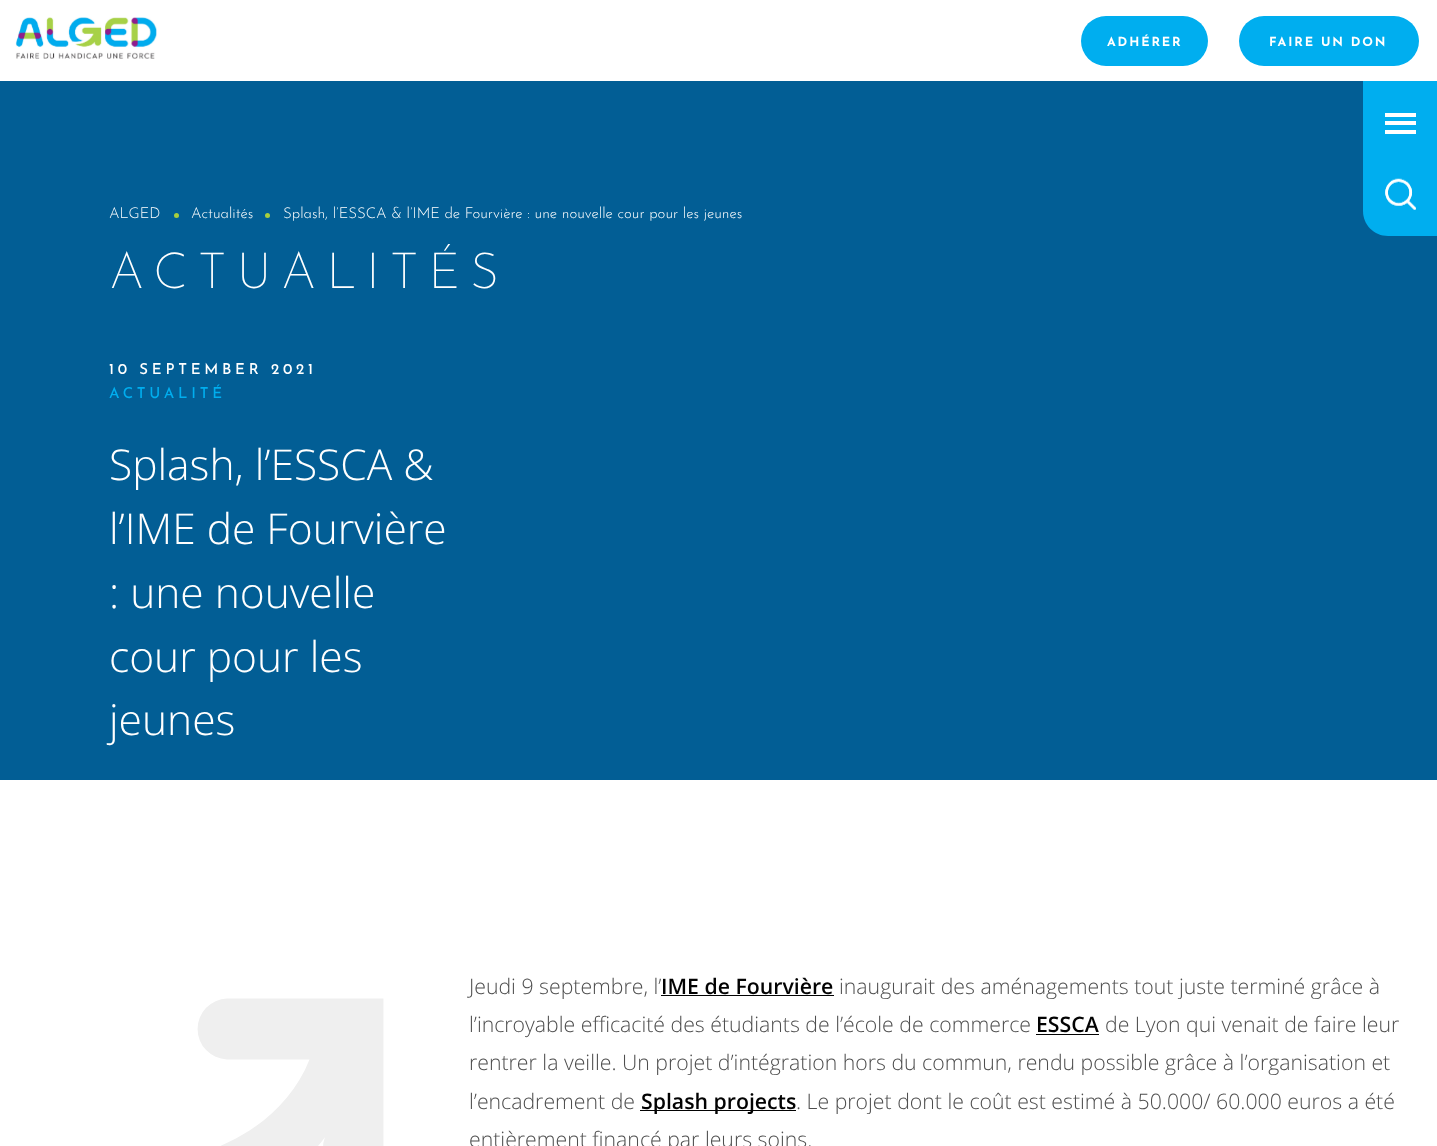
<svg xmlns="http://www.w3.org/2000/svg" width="1437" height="1146">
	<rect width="100%" height="100%" fill="#FFFFFF" />
	<image x="15" y="17" width="142" height="42" href="assets/img1.png" />
	<rect x="1081" y="16" width="127" height="50" rx="25" fill="#00AEEF" />
	<text x="1107" y="46" font-family="Josefin Sans" font-size="12.5" font-weight="700" letter-spacing="1.9" fill="#FFFFFF">ADHÉRER</text>
	<rect x="1239" y="16" width="180" height="50" rx="25" fill="#00AEEF" />
	<text x="1269" y="46" font-family="Josefin Sans" font-size="12.5" font-weight="700" letter-spacing="1.9" fill="#FFFFFF">FAIRE UN DON</text>
	<rect x="0" y="81" width="1437" height="699" fill="#025E95" />
	<path d="M1363 81H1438V236H1388C1374 236 1363 225 1363 211Z" fill="#00AEEF" />
	<rect x="1385" y="113" width="31" height="4" fill="#FFFFFF" />
	<rect x="1385" y="121" width="31" height="4" fill="#FFFFFF" />
	<rect x="1385" y="130" width="31" height="4" fill="#FFFFFF" />
	<image x="1385" y="178" width="31" height="32" href="assets/img2.png" />
	<text x="109" y="218" font-family="Josefin Sans" font-size="15" font-weight="300" fill="#FFFFFF">ALGED</text>
	<circle cx="176.5" cy="215.5" r="2.5" fill="#A7CE3D" />
	<text x="191" y="218" font-family="Josefin Sans" font-size="15" font-weight="300" fill="#FFFFFF">Actualités</text>
	<circle cx="267.5" cy="215.5" r="2.5" fill="#A7CE3D" />
	<text x="283" y="218" font-family="Josefin Sans" font-size="15" font-weight="300" fill="#FFFFFF">Splash, l’ESSCA &amp; l’IME de Fourvière : une nouvelle cour pour les jeunes</text>
	<text x="109" y="288" font-family="Josefin Sans" font-size="50" font-weight="200" letter-spacing="10" fill="#FFFFFF">ACTUALITÉS</text>
	<text x="109" y="374" font-family="Josefin Sans" font-size="15" font-weight="500" letter-spacing="3.75" fill="#FFFFFF">10 SEPTEMBER 2021</text>
	<text x="109" y="398" font-family="Josefin Sans" font-size="15" font-weight="500" letter-spacing="3.75" fill="#00AEEF">ACTUALITÉ</text>
	<g font-family="Open Sans" font-size="42.5" font-weight="300" fill="#FFFFFF">
		<text x="109" y="480">Splash, l’ESSCA &amp;</text>
		<text x="109" y="544">l’IME de Fourvière</text>
		<text x="109" y="608">: une nouvelle</text>
		<text x="109" y="672">cour pour les</text>
		<text x="109" y="735">jeunes</text>
	</g>
	<image x="197" y="998" width="187" height="148" href="assets/img3.png" />
	<text x="469" y="994" font-family="Open Sans" font-size="21.25" font-weight="300" fill="#4E4E4E">Jeudi 9 septembre, l’</text>
	<text x="661" y="994" font-family="Open Sans" font-size="21.25" font-weight="600" fill="#020202">IME de Fourvière</text>
	<rect x="661" y="995" width="173" height="1" fill="#020202" />
	<g font-family="Open Sans" font-size="21.25" font-weight="300" fill="#4E4E4E">
		<text x="839" y="994">inaugurait des aménagements tout juste terminé grâce à</text>
		<text x="469" y="1032">l’incroyable efficacité des étudiants de l’école de commerce</text>
	</g>
	<text x="1036" y="1032" font-family="Open Sans" font-size="21.25" font-weight="600" fill="#020202">ESSCA</text>
	<rect x="1036" y="1034" width="63" height="1" fill="#020202" />
	<g font-family="Open Sans" font-size="21.25" font-weight="300" fill="#4E4E4E">
		<text x="1105" y="1032">de Lyon qui venait de faire leur</text>
		<text x="469" y="1070">rentrer la veille. Un projet d’intégration hors du commun, rendu possible grâce à l’organisation et</text>
		<text x="469" y="1109">l’encadrement de</text>
	</g>
	<rect x="640" y="1110" width="156" height="1" fill="#020202" />
	<text x="641" y="1109" font-family="Open Sans" font-size="21.25" font-weight="600" fill="#020202">Splash projects</text>
	<g font-family="Open Sans" font-size="21.25" font-weight="300" fill="#4E4E4E">
		<text x="796" y="1109">. Le projet dont le coût est estimé à 50.000/ 60.000 euros a été</text>
		<text x="469" y="1147">entièrement financé par leurs soins.</text>
	</g>
</svg>
